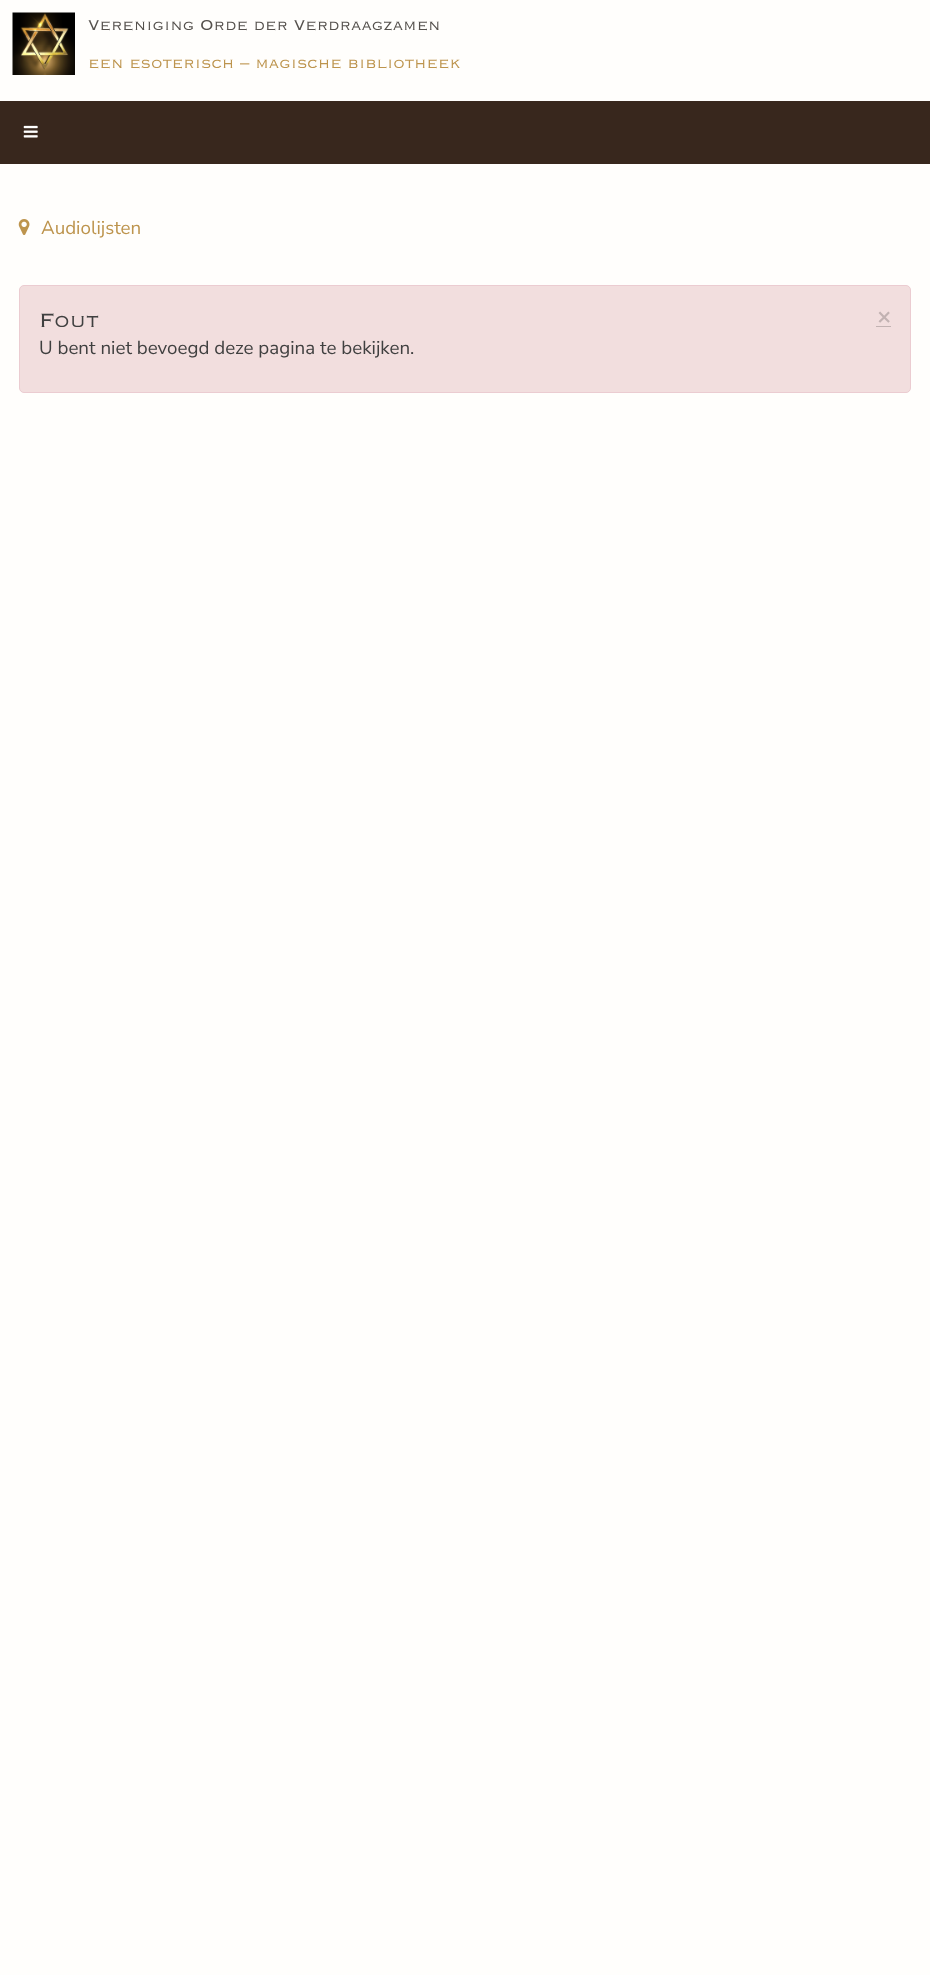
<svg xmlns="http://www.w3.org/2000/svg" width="930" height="1975">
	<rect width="100%" height="100%" fill="#FFFEFC" />
	<image x="12" y="12" width="63" height="63" href="assets/img1.png" />
	<text x="88" y="30" font-family="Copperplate" font-size="18.75" font-weight="300" fill="#55514D">Vereniging Orde der Verdraagzamen</text>
	<text x="88" y="68" font-family="Copperplate" font-size="18.75" font-weight="300" fill="#BD944D">een esoterisch – magische bibliotheek</text>
	<rect x="0" y="101" width="930" height="63" fill="#38271D" />
	<image x="23" y="125" width="15" height="13" href="assets/img2.png" />
	<image x="18" y="219" width="12" height="16" href="assets/img3.png" />
	<text x="41" y="234" font-family="Nunito Sans" font-size="18.75" fill="#BD944D">Audiolijsten</text>
	<rect x="19.5" y="285.5" width="891" height="107" rx="4.5" fill="#F2DEDE" stroke="#EBCCD1" />
	<text x="39" y="327" font-family="Copperplate" font-size="25" font-weight="300" fill="#404040">Fout</text>
	<text x="877" y="324" font-family="Nunito Sans" font-size="24" font-weight="700" fill="#C2B2B2">×</text>
	<rect x="876" y="326" width="15" height="1" fill="#C2B2B2" />
	<text x="39" y="354" font-family="Nunito Sans" font-size="18.75" fill="#404040">U bent niet bevoegd deze pagina te bekijken.</text>
</svg>
